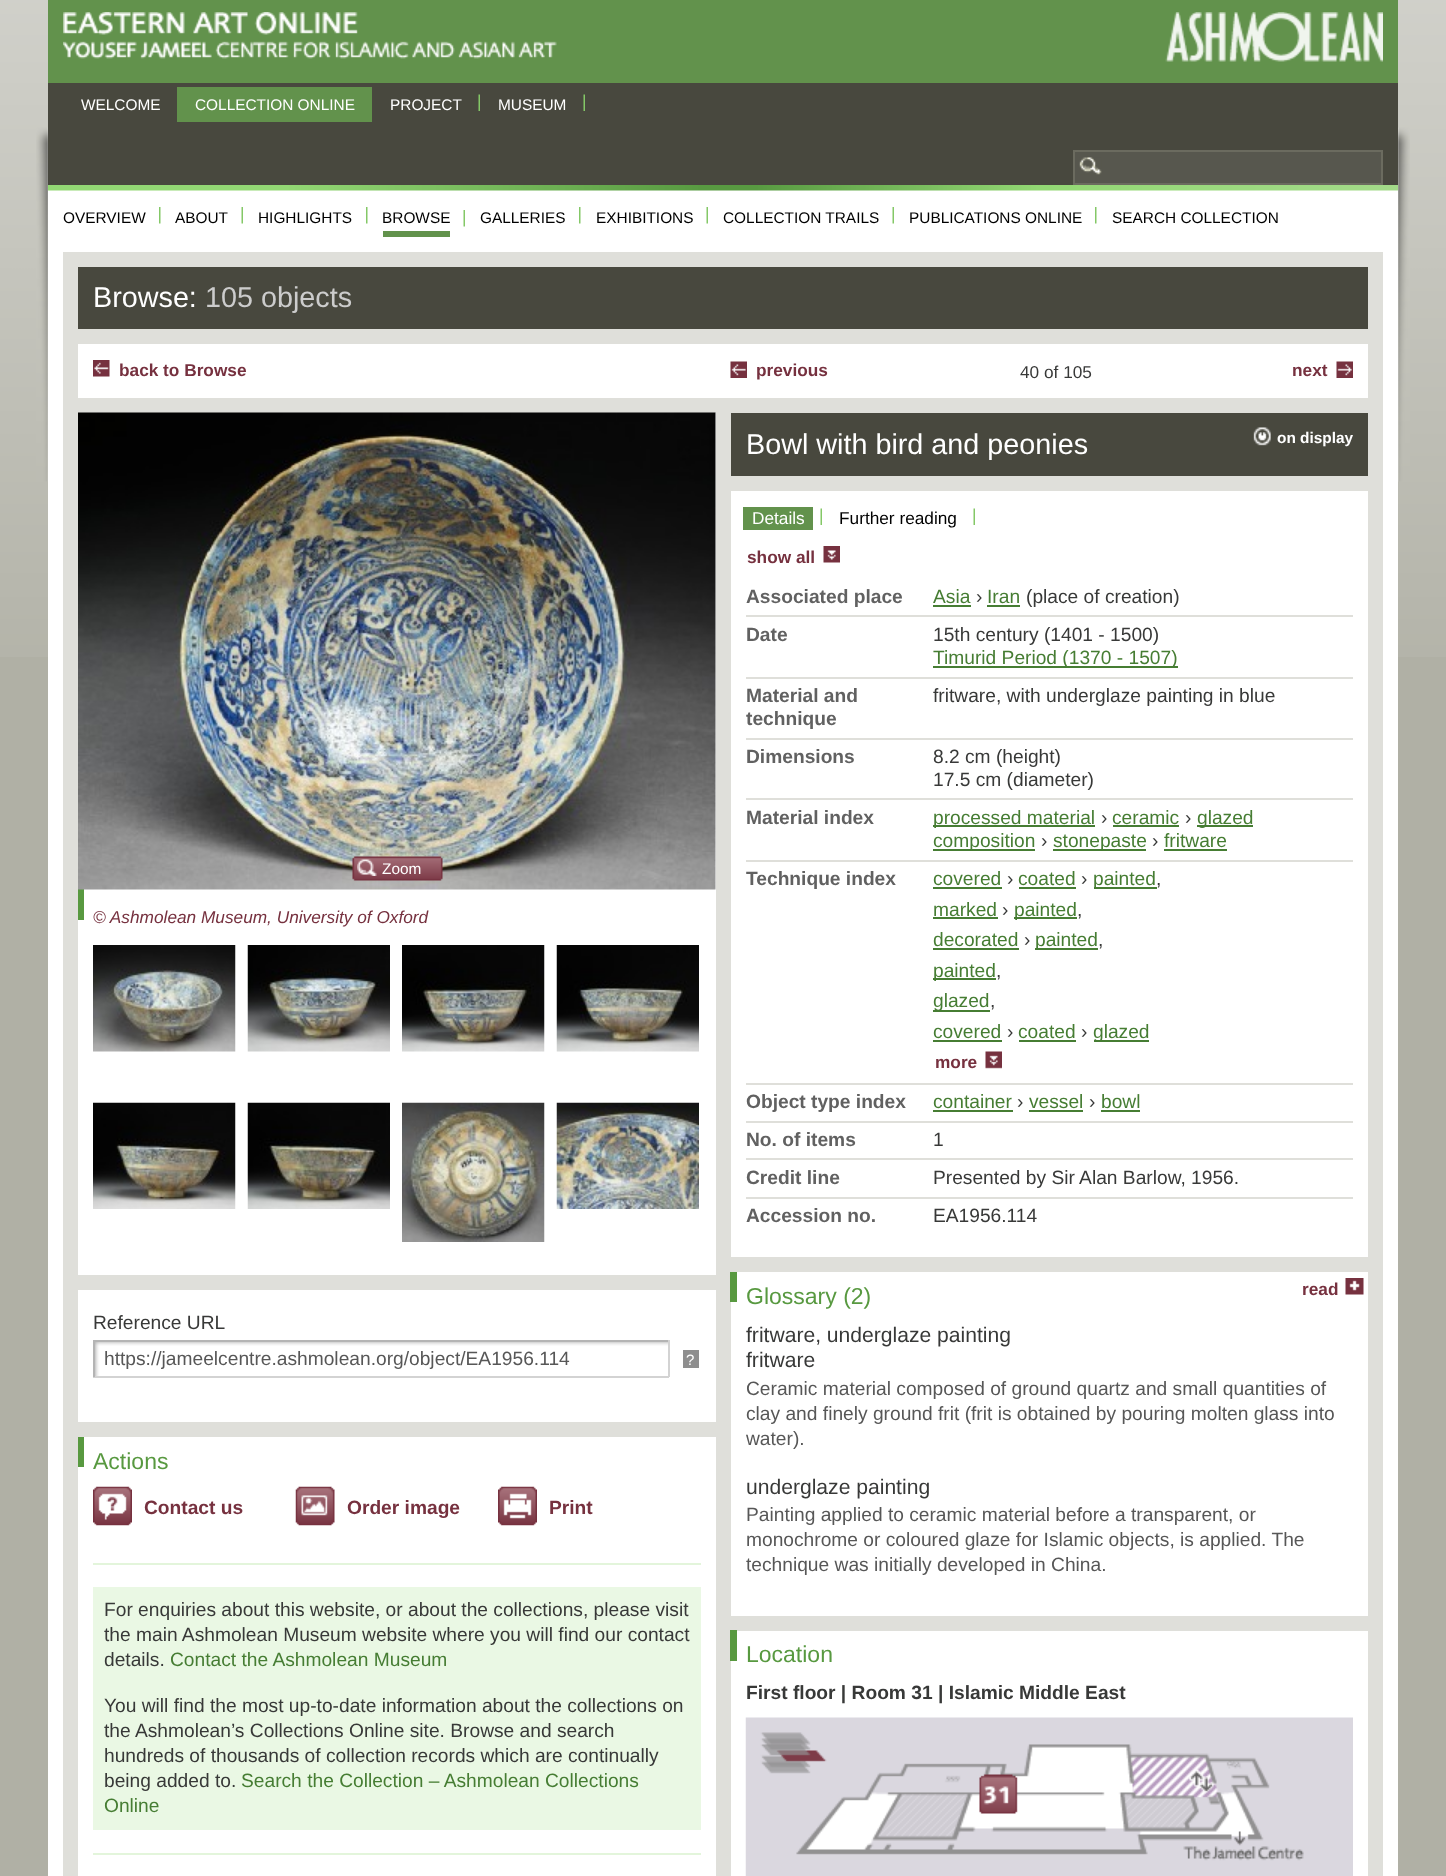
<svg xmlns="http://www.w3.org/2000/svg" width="1446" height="1876">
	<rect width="100%" height="100%" fill="#B0B0A5" />
	<image x="0" y="0" width="1446" height="657" href="assets/img1.png" />
	<image x="36" y="127" width="1374" height="355" href="assets/img2.png" />
	<rect x="48" y="0" width="1350" height="83" fill="#62924C" />
	<image x="63" y="12" width="494" height="47" href="assets/img3.png" />
	<image x="1165" y="12" width="218" height="50" href="assets/img4.png" />
	<rect x="48" y="83" width="1350" height="102" fill="#48483E" />
	<text x="81" y="110" font-family="Liberation Sans" font-size="15.4" fill="#FFFFFF">WELCOME</text>
	<rect x="177" y="87" width="195" height="35" fill="#62924C" />
	<text x="195" y="110" font-family="Liberation Sans" font-size="15.4" fill="#FFFFFF">COLLECTION ONLINE</text>
	<image x="478" y="94" width="2" height="17" href="assets/img5.png" />
	<text x="390" y="110" font-family="Liberation Sans" font-size="15.4" fill="#FFFFFF">PROJECT</text>
	<image x="583" y="94" width="2" height="17" href="assets/img5.png" />
	<text x="498" y="110" font-family="Liberation Sans" font-size="15.4" fill="#FFFFFF">MUSEUM</text>
	<rect x="1075" y="152" width="306" height="31" fill="#57574E" />
	<image x="1079" y="157" width="23" height="18" href="assets/img6.png" />
	<rect x="1074" y="151" width="308" height="33" fill="none" stroke="#6B6B5F" stroke-width="2" />
	<rect x="48" y="190" width="1350" height="1686" fill="#FFFFFF" />
	<image x="48" y="185" width="1350" height="6" href="assets/img7.png" />
	<image x="159" y="207" width="2" height="17" href="assets/img8.png" />
	<text x="63" y="223" font-family="Liberation Sans" font-size="15.4" fill="#000000">OVERVIEW</text>
	<image x="241" y="207" width="2" height="17" href="assets/img9.png" />
	<text x="175" y="223" font-family="Liberation Sans" font-size="15.4" fill="#000000">ABOUT</text>
	<image x="366" y="207" width="2" height="17" href="assets/img8.png" />
	<text x="258" y="223" font-family="Liberation Sans" font-size="15.4" fill="#000000">HIGHLIGHTS</text>
	<image x="463" y="210" width="2" height="17" href="assets/img9.png" />
	<rect x="383" y="231" width="67" height="6" fill="#62924C" />
	<text x="382" y="223" font-family="Liberation Sans" font-size="15.4" fill="#000000">BROWSE</text>
	<image x="579" y="207" width="2" height="17" href="assets/img8.png" />
	<text x="480" y="223" font-family="Liberation Sans" font-size="15.4" fill="#000000">GALLERIES</text>
	<image x="706" y="207" width="2" height="17" href="assets/img9.png" />
	<text x="596" y="223" font-family="Liberation Sans" font-size="15.4" fill="#000000">EXHIBITIONS</text>
	<image x="892" y="207" width="2" height="17" href="assets/img9.png" />
	<text x="723" y="223" font-family="Liberation Sans" font-size="15.4" fill="#000000">COLLECTION TRAILS</text>
	<image x="1095" y="207" width="2" height="17" href="assets/img8.png" />
	<g font-family="Liberation Sans" font-size="15.4" fill="#000000">
		<text x="909" y="223">PUBLICATIONS ONLINE</text>
		<text x="1112" y="223">SEARCH COLLECTION</text>
	</g>
	<rect x="63" y="252" width="1320" height="1624" fill="#DFDFDA" />
	<rect x="78" y="267" width="1290" height="62" fill="#48483E" />
	<text x="93" y="307" font-family="Liberation Sans" font-size="28.75" fill="#FFFFFF">Browse:</text>
	<text x="205" y="307" font-family="Liberation Sans" font-size="28.75" fill="#CCCCCC">105 objects</text>
	<rect x="78" y="344" width="1290" height="54" fill="#FFFFFF" />
	<image x="93" y="360" width="17" height="17" href="assets/img10.png" />
	<text x="119" y="376" font-family="Liberation Sans" font-size="17.25" font-weight="700" fill="#76313F">back to Browse</text>
	<image x="730" y="361" width="17" height="17" href="assets/img11.png" />
	<text x="756" y="376" font-family="Liberation Sans" font-size="17.25" font-weight="700" fill="#76313F">previous</text>
	<text x="1020" y="378" font-family="Liberation Sans" font-size="17.25" fill="#383938">40 of 105</text>
	<text x="1292" y="376" font-family="Liberation Sans" font-size="17.25" font-weight="700" fill="#76313F">next</text>
	<image x="1336" y="361" width="17" height="17" href="assets/img12.png" />
	<rect x="78" y="413" width="638" height="1463" fill="#FFFFFF" />
	<rect x="78" y="889" width="6" height="31" fill="#589940" />
	<image x="78" y="412" width="638" height="478" href="assets/img13.png" />
	<image x="352" y="856" width="91" height="25" href="assets/img14.png" />
	<image x="357" y="859" width="20" height="17" href="assets/img15.png" />
	<text x="382" y="874" font-family="Liberation Sans" font-size="15.4" fill="#FFFFFF">Zoom</text>
	<rect x="78" y="1275" width="638" height="15" fill="#DFDFDA" />
	<text x="93" y="923" font-family="Liberation Sans" font-size="17.25" font-style="italic" fill="#76313F">© Ashmolean Museum, University of Oxford</text>
	<image x="93" y="945" width="143" height="107" href="assets/img16.png" />
	<image x="247" y="945" width="143" height="107" href="assets/img17.png" />
	<image x="402" y="945" width="143" height="107" href="assets/img18.png" />
	<image x="556" y="945" width="143" height="107" href="assets/img19.png" />
	<image x="93" y="1102" width="143" height="107" href="assets/img20.png" />
	<image x="247" y="1102" width="143" height="107" href="assets/img21.png" />
	<image x="402" y="1102" width="143" height="140" href="assets/img22.png" />
	<image x="556" y="1102" width="143" height="107" href="assets/img23.png" />
	<rect x="78" y="1422" width="638" height="15" fill="#DFDFDA" />
	<text x="93" y="1329" font-family="Liberation Sans" font-size="19.2" fill="#383938">Reference URL</text>
	<image x="95" y="1342" width="573" height="34" href="assets/img24.png" />
	<rect x="93" y="1340" width="576" height="2" fill="#B4B4B4" />
	<rect x="668" y="1340" width="2" height="37" fill="#D3D3D3" />
	<rect x="93" y="1376" width="576" height="2" fill="#D3D3D3" />
	<rect x="93" y="1340" width="2" height="37" fill="#B4B4B4" />
	<text x="104" y="1365" font-family="Liberation Sans" font-size="19.2" fill="#575757">https://jameelcentre.ashmolean.org/object/EA1956.114</text>
	<rect x="683" y="1350" width="16" height="18" fill="#8E8E8E" />
	<text x="686" y="1365" font-family="Liberation Sans" font-size="15" fill="#FFFFFF">?</text>
	<rect x="78" y="1437" width="6" height="30" fill="#589940" />
	<text x="93" y="1469" font-family="Liberation Sans" font-size="23" fill="#589940">Actions</text>
	<image x="93" y="1486" width="39" height="40" href="assets/img25.png" />
	<text x="144" y="1514" font-family="Liberation Sans" font-size="19.2" font-weight="700" fill="#76313F">Contact us</text>
	<image x="295" y="1486" width="40" height="40" href="assets/img26.png" />
	<text x="347" y="1514" font-family="Liberation Sans" font-size="19.2" font-weight="700" fill="#76313F">Order image</text>
	<image x="498" y="1486" width="39" height="40" href="assets/img27.png" />
	<text x="549" y="1514" font-family="Liberation Sans" font-size="19.2" font-weight="700" fill="#76313F">Print</text>
	<rect x="93" y="1563" width="608" height="2" fill="#E3F5DB" />
	<rect x="93" y="1587" width="608" height="243" fill="#EAF8E4" />
	<g font-family="Liberation Sans" font-size="19.2" fill="#383938">
		<text x="104" y="1616">For enquiries about this website, or about the collections, please visit</text>
		<text x="104" y="1641">the main Ashmolean Museum website where you will find our contact</text>
		<text x="104" y="1666">details.</text>
	</g>
	<text x="170" y="1666" font-family="Liberation Sans" font-size="19.2" fill="#467D33">Contact the Ashmolean Museum</text>
	<g font-family="Liberation Sans" font-size="19.2" fill="#383938">
		<text x="104" y="1712">You will find the most up-to-date information about the collections on</text>
		<text x="104" y="1737">the Ashmolean’s Collections Online site. Browse and search</text>
		<text x="104" y="1762">hundreds of thousands of collection records which are continually</text>
		<text x="104" y="1787">being added to.</text>
	</g>
	<g font-family="Liberation Sans" font-size="19.2" fill="#467D33">
		<text x="241" y="1787">Search the Collection – Ashmolean Collections</text>
		<text x="104" y="1812">Online</text>
	</g>
	<rect x="93" y="1853" width="608" height="2" fill="#E3F5DB" />
	<rect x="731" y="491" width="637" height="1385" fill="#FFFFFF" />
	<rect x="731" y="413" width="637" height="63" fill="#48483E" />
	<text x="746" y="454" font-family="Liberation Sans" font-size="28.75" fill="#FFFFFF">Bowl with bird and peonies</text>
	<image x="1253" y="427" width="18" height="19" href="assets/img28.png" />
	<text x="1277" y="443" font-family="Liberation Sans" font-size="15.4" font-weight="700" fill="#FFFFFF">on display</text>
	<rect x="731" y="1257" width="637" height="15" fill="#DFDFDA" />
	<image x="820" y="508" width="2" height="17" href="assets/img29.png" />
	<rect x="743" y="507" width="70" height="23" fill="#62924C" />
	<text x="752" y="524" font-family="Liberation Sans" font-size="17.25" fill="#FFFFFF">Details</text>
	<image x="973" y="508" width="2" height="17" href="assets/img29.png" />
	<text x="839" y="524" font-family="Liberation Sans" font-size="17.25" fill="#000000">Further reading</text>
	<text x="747" y="563" font-family="Liberation Sans" font-size="17.25" font-weight="700" fill="#76313F">show all</text>
	<image x="823" y="546" width="17" height="17" href="assets/img30.png" />
	<rect x="746" y="615" width="607" height="2" fill="#DFDFDA" />
	<text x="746" y="603" font-family="Liberation Sans" font-size="19.2" font-weight="700" fill="#616161">Associated place</text>
	<text x="933" y="603" font-family="Liberation Sans" font-size="19.2" fill="#467D33">Asia</text>
	<rect x="933" y="605" width="38" height="2" fill="#467D33" />
	<text x="976" y="603" font-family="Liberation Sans" font-size="19.2" fill="#383938">›</text>
	<text x="987" y="603" font-family="Liberation Sans" font-size="19.2" fill="#467D33">Iran</text>
	<rect x="987" y="605" width="33" height="2" fill="#467D33" />
	<text x="1026" y="603" font-family="Liberation Sans" font-size="19.2" fill="#383938">(place of creation)</text>
	<rect x="746" y="677" width="607" height="2" fill="#DFDFDA" />
	<text x="746" y="641" font-family="Liberation Sans" font-size="19.2" font-weight="700" fill="#616161">Date</text>
	<text x="933" y="641" font-family="Liberation Sans" font-size="19.2" fill="#383938">15th century (1401 - 1500)</text>
	<rect x="933" y="666" width="245" height="2" fill="#467D33" />
	<text x="933" y="664" font-family="Liberation Sans" font-size="19.2" fill="#467D33">Timurid Period (1370 - 1507)</text>
	<rect x="746" y="738" width="607" height="2" fill="#DFDFDA" />
	<g font-family="Liberation Sans" font-size="19.2" font-weight="700" fill="#616161">
		<text x="746" y="702">Material and</text>
		<text x="746" y="725">technique</text>
	</g>
	<text x="933" y="702" font-family="Liberation Sans" font-size="19.2" fill="#383938">fritware, with underglaze painting in blue</text>
	<rect x="746" y="798" width="607" height="2" fill="#DFDFDA" />
	<text x="746" y="763" font-family="Liberation Sans" font-size="19.2" font-weight="700" fill="#616161">Dimensions</text>
	<g font-family="Liberation Sans" font-size="19.2" fill="#383938">
		<text x="933" y="763">8.2 cm (height)</text>
		<text x="933" y="786">17.5 cm (diameter)</text>
	</g>
	<rect x="746" y="860" width="607" height="2" fill="#DFDFDA" />
	<text x="746" y="824" font-family="Liberation Sans" font-size="19.2" font-weight="700" fill="#616161">Material index</text>
	<rect x="933" y="825" width="162" height="2" fill="#467D33" />
	<text x="933" y="824" font-family="Liberation Sans" font-size="19.2" fill="#467D33">processed material</text>
	<text x="1101" y="824" font-family="Liberation Sans" font-size="19.2" fill="#383938">›</text>
	<text x="1112" y="824" font-family="Liberation Sans" font-size="19.2" fill="#467D33">ceramic</text>
	<rect x="1113" y="825" width="66" height="2" fill="#467D33" />
	<text x="1185" y="824" font-family="Liberation Sans" font-size="19.2" fill="#383938">›</text>
	<rect x="1197" y="825" width="56" height="2" fill="#467D33" />
	<text x="1197" y="824" font-family="Liberation Sans" font-size="19.2" fill="#467D33">glazed</text>
	<rect x="933" y="849" width="102" height="2" fill="#467D33" />
	<text x="933" y="847" font-family="Liberation Sans" font-size="19.2" fill="#467D33">composition</text>
	<text x="1041" y="847" font-family="Liberation Sans" font-size="19.2" fill="#383938">›</text>
	<rect x="1053" y="849" width="93" height="2" fill="#467D33" />
	<text x="1053" y="847" font-family="Liberation Sans" font-size="19.2" fill="#467D33">stonepaste</text>
	<text x="1152" y="847" font-family="Liberation Sans" font-size="19.2" fill="#383938">›</text>
	<text x="1164" y="847" font-family="Liberation Sans" font-size="19.2" fill="#467D33">fritware</text>
	<rect x="1164" y="849" width="63" height="2" fill="#467D33" />
	<rect x="746" y="1083" width="607" height="2" fill="#DFDFDA" />
	<text x="746" y="885" font-family="Liberation Sans" font-size="19.2" font-weight="700" fill="#616161">Technique index</text>
	<text x="933" y="885" font-family="Liberation Sans" font-size="19.2" fill="#467D33">covered</text>
	<rect x="933" y="887" width="69" height="2" fill="#467D33" />
	<text x="1007" y="885" font-family="Liberation Sans" font-size="19.2" fill="#383938">›</text>
	<text x="1018" y="885" font-family="Liberation Sans" font-size="19.2" fill="#467D33">coated</text>
	<rect x="1019" y="887" width="57" height="2" fill="#467D33" />
	<text x="1081" y="885" font-family="Liberation Sans" font-size="19.2" fill="#383938">›</text>
	<rect x="1094" y="887" width="63" height="2" fill="#467D33" />
	<text x="1093" y="885" font-family="Liberation Sans" font-size="19.2" fill="#467D33">painted</text>
	<text x="1156" y="885" font-family="Liberation Sans" font-size="19.2" fill="#383938">,</text>
	<text x="933" y="916" font-family="Liberation Sans" font-size="19.2" fill="#467D33">marked</text>
	<rect x="933" y="917" width="65" height="2" fill="#467D33" />
	<text x="1002" y="916" font-family="Liberation Sans" font-size="19.2" fill="#383938">›</text>
	<rect x="1014" y="917" width="63" height="2" fill="#467D33" />
	<text x="1014" y="916" font-family="Liberation Sans" font-size="19.2" fill="#467D33">painted</text>
	<text x="1077" y="916" font-family="Liberation Sans" font-size="19.2" fill="#383938">,</text>
	<text x="933" y="946" font-family="Liberation Sans" font-size="19.2" fill="#467D33">decorated</text>
	<rect x="933" y="948" width="86" height="2" fill="#467D33" />
	<text x="1024" y="946" font-family="Liberation Sans" font-size="19.2" fill="#383938">›</text>
	<rect x="1035" y="948" width="63" height="2" fill="#467D33" />
	<text x="1035" y="946" font-family="Liberation Sans" font-size="19.2" fill="#467D33">painted</text>
	<text x="1098" y="946" font-family="Liberation Sans" font-size="19.2" fill="#383938">,</text>
	<rect x="933" y="978" width="63" height="2" fill="#467D33" />
	<text x="933" y="977" font-family="Liberation Sans" font-size="19.2" fill="#467D33">painted</text>
	<text x="996" y="977" font-family="Liberation Sans" font-size="19.2" fill="#383938">,</text>
	<rect x="933" y="1010" width="57" height="2" fill="#467D33" />
	<text x="933" y="1007" font-family="Liberation Sans" font-size="19.2" fill="#467D33">glazed</text>
	<text x="990" y="1007" font-family="Liberation Sans" font-size="19.2" fill="#383938">,</text>
	<text x="933" y="1038" font-family="Liberation Sans" font-size="19.2" fill="#467D33">covered</text>
	<rect x="933" y="1040" width="69" height="2" fill="#467D33" />
	<text x="1007" y="1038" font-family="Liberation Sans" font-size="19.2" fill="#383938">›</text>
	<text x="1018" y="1038" font-family="Liberation Sans" font-size="19.2" fill="#467D33">coated</text>
	<rect x="1019" y="1040" width="57" height="2" fill="#467D33" />
	<text x="1081" y="1038" font-family="Liberation Sans" font-size="19.2" fill="#383938">›</text>
	<rect x="1094" y="1040" width="55" height="2" fill="#467D33" />
	<text x="1093" y="1038" font-family="Liberation Sans" font-size="19.2" fill="#467D33">glazed</text>
	<text x="935" y="1068" font-family="Liberation Sans" font-size="17.25" font-weight="700" fill="#76313F">more</text>
	<image x="985" y="1051" width="17" height="18" href="assets/img31.png" />
	<rect x="746" y="1121" width="607" height="2" fill="#DFDFDA" />
	<text x="746" y="1108" font-family="Liberation Sans" font-size="19.2" font-weight="700" fill="#616161">Object type index</text>
	<text x="933" y="1108" font-family="Liberation Sans" font-size="19.2" fill="#467D33">container</text>
	<rect x="933" y="1110" width="80" height="2" fill="#467D33" />
	<text x="1017" y="1108" font-family="Liberation Sans" font-size="19.2" fill="#383938">›</text>
	<text x="1029" y="1108" font-family="Liberation Sans" font-size="19.2" fill="#467D33">vessel</text>
	<rect x="1029" y="1110" width="54" height="2" fill="#467D33" />
	<text x="1089" y="1108" font-family="Liberation Sans" font-size="19.2" fill="#383938">›</text>
	<text x="1101" y="1108" font-family="Liberation Sans" font-size="19.2" fill="#467D33">bowl</text>
	<rect x="1101" y="1110" width="39" height="2" fill="#467D33" />
	<rect x="746" y="1158" width="607" height="2" fill="#DFDFDA" />
	<text x="746" y="1146" font-family="Liberation Sans" font-size="19.2" font-weight="700" fill="#616161">No. of items</text>
	<text x="933" y="1146" font-family="Liberation Sans" font-size="19.2" fill="#383938">1</text>
	<rect x="746" y="1197" width="607" height="2" fill="#DFDFDA" />
	<text x="746" y="1184" font-family="Liberation Sans" font-size="19.2" font-weight="700" fill="#616161">Credit line</text>
	<text x="933" y="1184" font-family="Liberation Sans" font-size="19.2" fill="#383938">Presented by Sir Alan Barlow, 1956.</text>
	<text x="746" y="1222" font-family="Liberation Sans" font-size="19.2" font-weight="700" fill="#616161">Accession no.</text>
	<text x="933" y="1222" font-family="Liberation Sans" font-size="19.2" fill="#383938">EA1956.114</text>
	<rect x="730" y="1272" width="7" height="30" fill="#589940" />
	<rect x="731" y="1616" width="637" height="15" fill="#DFDFDA" />
	<text x="746" y="1304" font-family="Liberation Sans" font-size="23" fill="#589940">Glossary (2)</text>
	<text x="1302" y="1295" font-family="Liberation Sans" font-size="17.25" font-weight="700" fill="#76313F">read</text>
	<image x="1345" y="1278" width="19" height="17" href="assets/img32.png" />
	<g font-family="Liberation Sans" font-size="21.1" fill="#383938">
		<text x="746" y="1342">fritware, underglaze painting</text>
		<text x="746" y="1367">fritware</text>
	</g>
	<g font-family="Liberation Sans" font-size="19.2" fill="#575757">
		<text x="746" y="1395">Ceramic material composed of ground quartz and small quantities of</text>
		<text x="746" y="1420">clay and finely ground frit (frit is obtained by pouring molten glass into</text>
		<text x="746" y="1445">water).</text>
	</g>
	<text x="746" y="1494" font-family="Liberation Sans" font-size="21.1" fill="#383938">underglaze painting</text>
	<g font-family="Liberation Sans" font-size="19.2" fill="#575757">
		<text x="746" y="1521">Painting applied to ceramic material before a transparent, or</text>
		<text x="746" y="1546">monochrome or coloured glaze for Islamic objects, is applied. The</text>
		<text x="746" y="1571">technique was initially developed in China.</text>
	</g>
	<rect x="730" y="1630" width="7" height="31" fill="#589940" />
	<text x="746" y="1662" font-family="Liberation Sans" font-size="23" fill="#589940">Location</text>
	<text x="746" y="1699" font-family="Liberation Sans" font-size="19.2" font-weight="700" fill="#383938">First floor | Room 31 | Islamic Middle East</text>
	<image x="745" y="1717" width="608" height="159" href="assets/img33.png" />
</svg>
